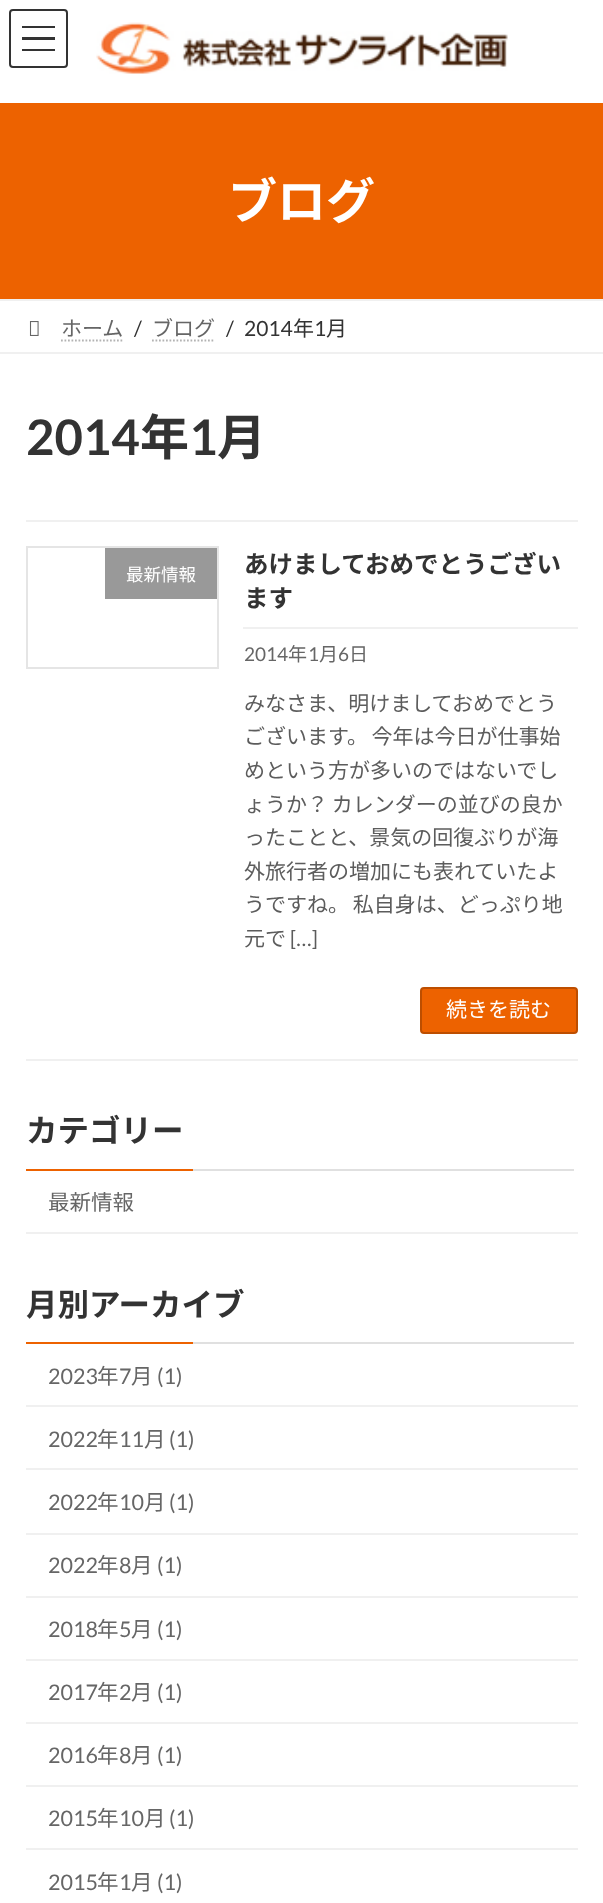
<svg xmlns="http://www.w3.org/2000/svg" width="603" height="1903">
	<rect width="100%" height="100%" fill="#FFFFFF" />
	<image x="96" y="22" width="412" height="52" href="assets/img1.png" />
	<rect x="0" y="103" width="603" height="196" fill="#ED6200" />
	<text x="228" y="219" font-family="Noto Sans JP" font-size="49" font-weight="700" fill="#FFFFFF">ブログ</text>
	<rect x="0" y="299" width="603" height="2" fill="#F0F0F0" />
	<rect x="0" y="352" width="603" height="2" fill="#F0F0F0" />
	<image x="29" y="321" width="10" height="15" href="assets/img2.png" />
	<text x="61" y="336" font-family="Noto Sans JP" font-size="21" fill="#666666">ホーム</text>
	<path d="M61 340.5H123.5" fill="none" stroke="#B3B3B3" stroke-width="1.8" stroke-dasharray="1.75 1.75" />
	<text x="134" y="336" font-family="Lato" font-size="21" fill="#333333">/</text>
	<text x="152" y="336" font-family="Noto Sans JP" font-size="21" fill="#666666">ブログ</text>
	<path d="M152 340.5H215" fill="none" stroke="#B3B3B3" stroke-width="1.8" stroke-dasharray="1.75 1.75" />
	<g font-family="Lato" font-size="21" fill="#333333">
		<text x="226" y="336">/</text>
		<text x="244" y="336">2014</text>
	</g>
	<text x="293" y="336" font-family="Noto Sans JP" font-size="21" fill="#333333">年</text>
	<text x="314" y="336" font-family="Lato" font-size="21" fill="#333333">1</text>
	<text x="326" y="336" font-family="Noto Sans JP" font-size="21" fill="#333333">月</text>
	<rect x="22" y="26" width="33" height="2" fill="#333333" />
	<rect x="22" y="37" width="33" height="3" fill="#333333" />
	<rect x="22" y="49" width="33" height="2" fill="#333333" />
	<rect x="10" y="10" width="57" height="57" rx="3" fill="none" stroke="#333333" stroke-width="2" />
	<text x="26" y="455" font-family="Lato" font-size="49" font-weight="700" fill="#333333">2014</text>
	<text x="140" y="455" font-family="Noto Sans JP" font-size="49" font-weight="700" fill="#333333">年</text>
	<text x="189" y="455" font-family="Lato" font-size="49" font-weight="700" fill="#333333">1</text>
	<text x="217" y="455" font-family="Noto Sans JP" font-size="49" font-weight="700" fill="#333333">月</text>
	<rect x="26" y="520" width="552" height="2" fill="#F0F0F0" />
	<rect x="26" y="1059" width="552" height="2" fill="#F0F0F0" />
	<rect x="27" y="547" width="191" height="121" fill="none" stroke="#E5E5E5" stroke-width="2" />
	<rect x="105" y="548" width="112" height="51" fill="#999999" />
	<text x="126" y="581" font-family="Noto Sans JP" font-size="17.5" fill="#FFFFFF">最新情報</text>
	<rect x="243" y="627" width="335" height="2" fill="#F0F0F0" />
	<g font-family="Noto Sans JP" font-size="24.5" font-weight="700" fill="#333333">
		<text x="244" y="573">あけましておめでとうござい</text>
		<text x="244" y="607">ます</text>
	</g>
	<text x="244" y="661" font-family="Lato" font-size="19" fill="#666666">2014</text>
	<text x="288" y="661" font-family="Noto Sans JP" font-size="19" fill="#666666">年</text>
	<text x="308" y="661" font-family="Lato" font-size="19" fill="#666666">1</text>
	<text x="319" y="661" font-family="Noto Sans JP" font-size="19" fill="#666666">月</text>
	<text x="338" y="661" font-family="Lato" font-size="19" fill="#666666">6</text>
	<text x="349" y="661" font-family="Noto Sans JP" font-size="19" fill="#666666">日</text>
	<g font-family="Noto Sans JP" font-size="21" fill="#5C5C5C">
		<text x="244" y="711">みなさま、明けましておめでとう</text>
		<text x="244" y="744" word-spacing="-1">ございます。 今年は今日が仕事始</text>
		<text x="244" y="778">めという方が多いのではないでし</text>
		<text x="244" y="812" word-spacing="-1">ょうか？ カレンダーの並びの良か</text>
		<text x="244" y="845">ったことと、景気の回復ぶりが海</text>
		<text x="244" y="879">外旅行者の増加にも表れていたよ</text>
		<text x="244" y="912" word-spacing="-1">うですね。 私自身は、どっぷり地</text>
		<text x="244" y="946">元で</text>
	</g>
	<text x="290" y="946" font-family="Lato" font-size="21" fill="#5C5C5C">[…]</text>
	<rect x="421" y="988" width="156" height="45" rx="3" fill="#ED6200" stroke="#BD4E00" stroke-width="2" />
	<text x="446" y="1017" font-family="Noto Sans JP" font-size="21" fill="#FFFFFF">続きを読む</text>
	<rect x="193" y="1169" width="381" height="2" fill="#E0E0E0" />
	<text x="26" y="1142" font-family="Noto Sans JP" font-size="31.5" font-weight="700" fill="#333333">カテゴリー</text>
	<rect x="26" y="1169" width="167" height="2" fill="#ED6200" />
	<rect x="26" y="1232" width="552" height="2" fill="#F0F0F0" />
	<text x="48" y="1210" font-family="Noto Sans JP" font-size="21.5" fill="#666666">最新情報</text>
	<rect x="193" y="1342" width="381" height="2" fill="#E0E0E0" />
	<text x="26" y="1316" font-family="Noto Sans JP" font-size="31.5" font-weight="700" fill="#333333">月別アーカイブ</text>
	<rect x="26" y="1342" width="167" height="2" fill="#ED6200" />
	<rect x="26" y="1405" width="552" height="2" fill="#F0F0F0" />
	<text x="48" y="1384" font-family="Lato" font-size="21.5" fill="#666666">2023</text>
	<text x="97" y="1384" font-family="Noto Sans JP" font-size="21.5" fill="#666666">年</text>
	<text x="119" y="1384" font-family="Lato" font-size="21.5" fill="#666666">7</text>
	<text x="131" y="1384" font-family="Noto Sans JP" font-size="21.5" fill="#666666">月</text>
	<text x="157" y="1384" font-family="Lato" font-size="21.5" fill="#666666">(1)</text>
	<rect x="26" y="1468" width="552" height="2" fill="#F0F0F0" />
	<text x="48" y="1447" font-family="Lato" font-size="21.5" fill="#666666">2022</text>
	<text x="97" y="1447" font-family="Noto Sans JP" font-size="21.5" fill="#666666">年</text>
	<text x="119" y="1447" font-family="Lato" font-size="21.5" fill="#666666">11</text>
	<text x="144" y="1447" font-family="Noto Sans JP" font-size="21.5" fill="#666666">月</text>
	<text x="169" y="1447" font-family="Lato" font-size="21.5" fill="#666666">(1)</text>
	<rect x="26" y="1533" width="552" height="2" fill="#F0F0F0" />
	<text x="48" y="1510" font-family="Lato" font-size="21.5" fill="#666666">2022</text>
	<text x="97" y="1510" font-family="Noto Sans JP" font-size="21.5" fill="#666666">年</text>
	<text x="119" y="1510" font-family="Lato" font-size="21.5" fill="#666666">10</text>
	<text x="144" y="1510" font-family="Noto Sans JP" font-size="21.5" fill="#666666">月</text>
	<text x="169" y="1510" font-family="Lato" font-size="21.5" fill="#666666">(1)</text>
	<rect x="26" y="1596" width="552" height="2" fill="#F0F0F0" />
	<text x="48" y="1573" font-family="Lato" font-size="21.5" fill="#666666">2022</text>
	<text x="97" y="1573" font-family="Noto Sans JP" font-size="21.5" fill="#666666">年</text>
	<text x="119" y="1573" font-family="Lato" font-size="21.5" fill="#666666">8</text>
	<text x="131" y="1573" font-family="Noto Sans JP" font-size="21.5" fill="#666666">月</text>
	<text x="157" y="1573" font-family="Lato" font-size="21.5" fill="#666666">(1)</text>
	<rect x="26" y="1659" width="552" height="2" fill="#F0F0F0" />
	<text x="48" y="1637" font-family="Lato" font-size="21.5" fill="#666666">2018</text>
	<text x="97" y="1637" font-family="Noto Sans JP" font-size="21.5" fill="#666666">年</text>
	<text x="119" y="1637" font-family="Lato" font-size="21.5" fill="#666666">5</text>
	<text x="131" y="1637" font-family="Noto Sans JP" font-size="21.5" fill="#666666">月</text>
	<text x="157" y="1637" font-family="Lato" font-size="21.5" fill="#666666">(1)</text>
	<rect x="26" y="1722" width="552" height="2" fill="#F0F0F0" />
	<text x="48" y="1700" font-family="Lato" font-size="21.5" fill="#666666">2017</text>
	<text x="97" y="1700" font-family="Noto Sans JP" font-size="21.5" fill="#666666">年</text>
	<text x="119" y="1700" font-family="Lato" font-size="21.5" fill="#666666">2</text>
	<text x="131" y="1700" font-family="Noto Sans JP" font-size="21.5" fill="#666666">月</text>
	<text x="157" y="1700" font-family="Lato" font-size="21.5" fill="#666666">(1)</text>
	<rect x="26" y="1785" width="552" height="2" fill="#F0F0F0" />
	<text x="48" y="1763" font-family="Lato" font-size="21.5" fill="#666666">2016</text>
	<text x="97" y="1763" font-family="Noto Sans JP" font-size="21.5" fill="#666666">年</text>
	<text x="119" y="1763" font-family="Lato" font-size="21.5" fill="#666666">8</text>
	<text x="131" y="1763" font-family="Noto Sans JP" font-size="21.5" fill="#666666">月</text>
	<text x="157" y="1763" font-family="Lato" font-size="21.5" fill="#666666">(1)</text>
	<rect x="26" y="1848" width="552" height="2" fill="#F0F0F0" />
	<text x="48" y="1826" font-family="Lato" font-size="21.5" fill="#666666">2015</text>
	<text x="97" y="1826" font-family="Noto Sans JP" font-size="21.5" fill="#666666">年</text>
	<text x="119" y="1826" font-family="Lato" font-size="21.5" fill="#666666">10</text>
	<text x="144" y="1826" font-family="Noto Sans JP" font-size="21.5" fill="#666666">月</text>
	<g font-family="Lato" font-size="21.5" fill="#666666">
		<text x="169" y="1826">(1)</text>
		<text x="48" y="1890">2015</text>
	</g>
	<text x="97" y="1890" font-family="Noto Sans JP" font-size="21.5" fill="#666666">年</text>
	<text x="119" y="1890" font-family="Lato" font-size="21.5" fill="#666666">1</text>
	<text x="131" y="1890" font-family="Noto Sans JP" font-size="21.5" fill="#666666">月</text>
	<text x="157" y="1890" font-family="Lato" font-size="21.5" fill="#666666">(1)</text>
</svg>
